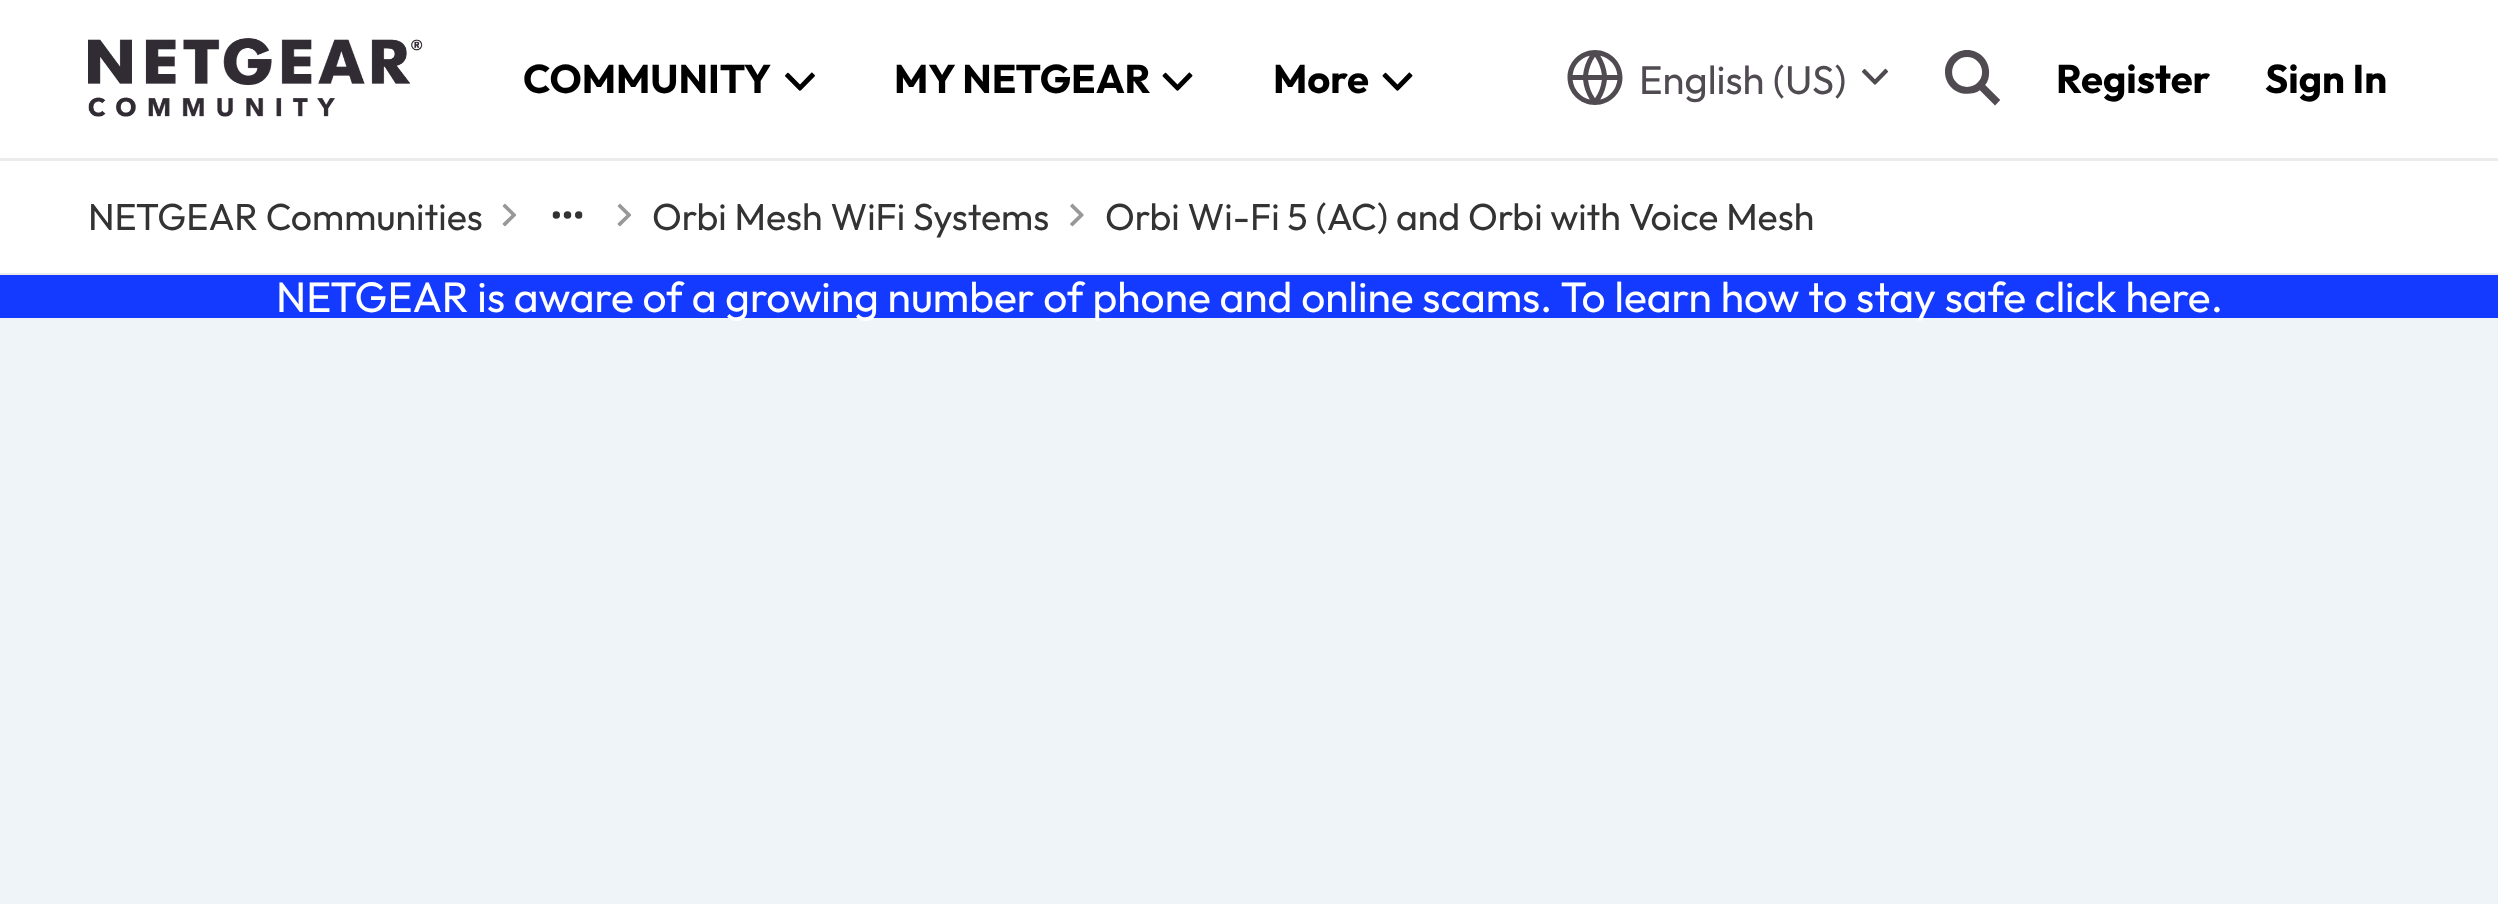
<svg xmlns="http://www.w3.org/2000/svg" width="2498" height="904">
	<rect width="100%" height="100%" fill="#EFF4F9" />
	<rect x="0" y="0" width="2498" height="273" fill="#FFFFFF" />
	<rect x="0" y="158" width="2498" height="3" fill="#000000" fill-opacity="0.08" />
	<image x="88" y="38" width="335" height="79" href="assets/img1.png" />
	<text x="523" y="93" font-family="Outfit" font-size="40" font-weight="700" fill="#000000">COMMUNITY</text>
	<image x="785" y="72" width="30" height="19" href="assets/img2.png" />
	<text x="894" y="93" font-family="Outfit" font-size="40" font-weight="700" fill="#000000">MY NETGEAR</text>
	<image x="1162" y="72" width="31" height="19" href="assets/img3.png" />
	<text x="1273" y="93" font-family="Outfit" font-size="40" font-weight="700" fill="#000000">More</text>
	<image x="1382" y="72" width="31" height="19" href="assets/img3.png" />
	<image x="1567" y="50" width="56" height="55" href="assets/img4.png" />
	<text x="1639" y="94" font-family="Outfit" font-size="40" fill="#504B51">English (US)</text>
	<image x="1862" y="68" width="26" height="17" href="assets/img5.png" />
	<image x="1945" y="50" width="56" height="56" href="assets/img6.png" />
	<g font-family="Outfit" font-size="40" font-weight="700" fill="#000000">
		<text x="2056" y="93">Register</text>
		<text x="2265" y="93">Sign In</text>
	</g>
	<rect x="0" y="273" width="2498" height="2" fill="#EBEBEB" />
	<text x="88" y="230" font-family="Outfit" font-size="37.5" fill="#333333">NETGEAR Communities</text>
	<image x="502" y="203" width="15" height="24" href="assets/img7.png" />
	<image x="552" y="211" width="31" height="8" href="assets/img8.png" />
	<image x="617" y="203" width="15" height="24" href="assets/img9.png" />
	<text x="652" y="230" font-family="Outfit" font-size="37.5" fill="#333333">Orbi Mesh WiFi Systems</text>
	<image x="1070" y="203" width="14" height="24" href="assets/img10.png" />
	<text x="1105" y="230" font-family="Outfit" font-size="37.5" fill="#333333">Orbi Wi-Fi 5 (AC) and Orbi with Voice Mesh</text>
	<rect x="0" y="275" width="2498" height="43" fill="#1439FF" />
	<text x="276" y="312" font-family="Outfit" font-size="42.5" fill="#FFFFFF">NETGEAR is aware of a growing number of phone and online scams. To learn how to stay safe click here.</text>
</svg>
